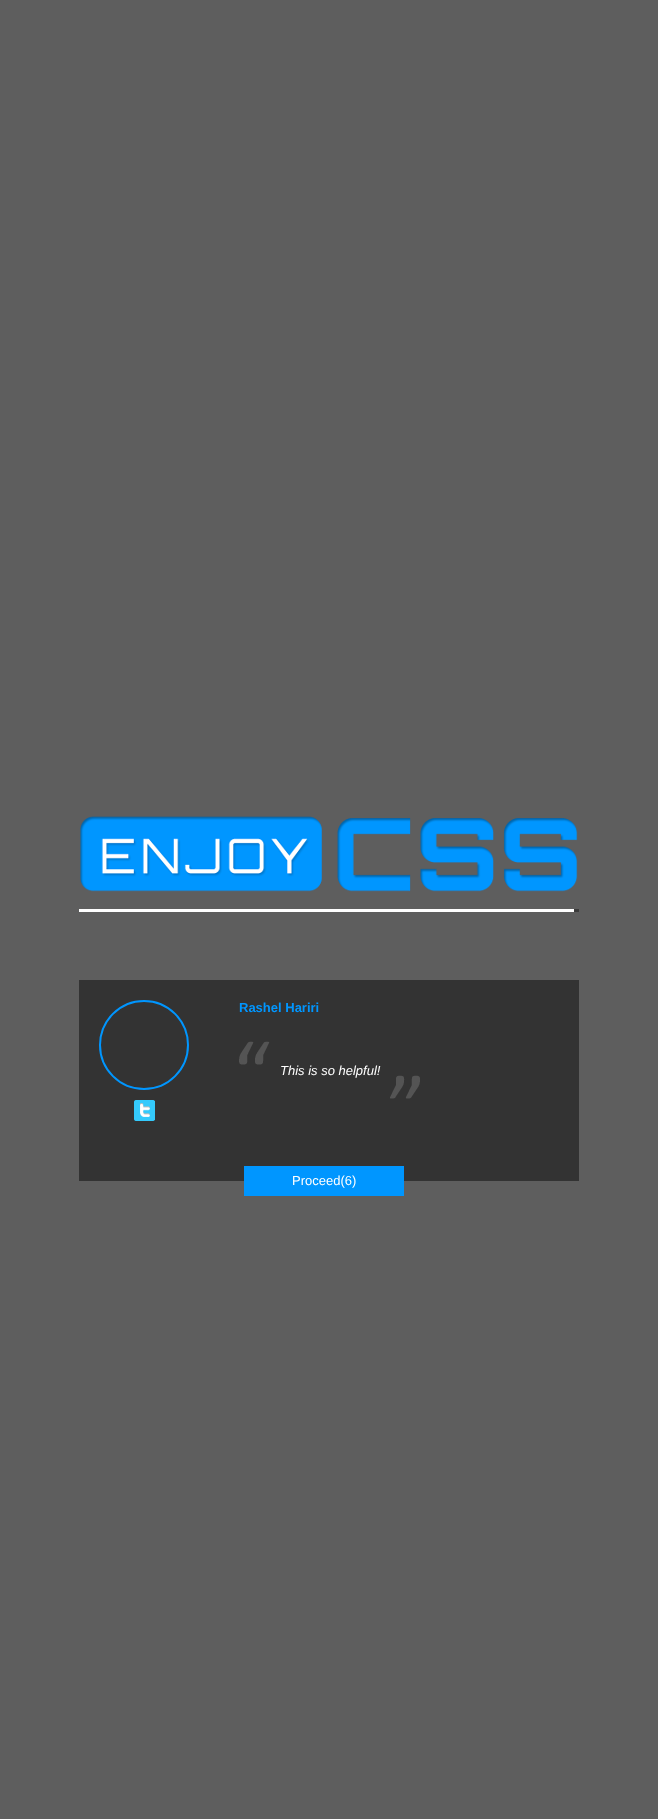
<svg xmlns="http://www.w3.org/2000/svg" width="658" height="1819">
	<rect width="100%" height="100%" fill="#5E5E5E" />
	<image x="80" y="816" width="498" height="76" href="assets/img1.png" />
	<rect x="574" y="909" width="5" height="3" fill="#3B3B3B" />
	<rect x="79" y="909" width="495" height="3" fill="#FFFFFF" />
	<rect x="79" y="980" width="500" height="201" fill="#333333" />
	<circle cx="144" cy="1045" r="44" fill="none" stroke="#0096FF" stroke-width="2" />
	<image x="134" y="1100" width="21" height="21" href="assets/img2.png" />
	<text x="239" y="1012" font-family="Liberation Sans" font-size="13" font-weight="700" fill="#0096FF">Rashel Hariri</text>
	<image x="239" y="1041" width="31" height="24" href="assets/img3.png" />
	<text x="280" y="1075" font-family="Liberation Sans" font-size="13" font-style="italic" fill="#FFFFFF">This is so helpful!</text>
	<image x="390" y="1075" width="30" height="24" href="assets/img4.png" />
	<rect x="244" y="1166" width="160" height="30" fill="#0096FF" />
	<text x="292" y="1185" font-family="Liberation Sans" font-size="13" fill="#FFFFFF">Proceed(6)</text>
</svg>
